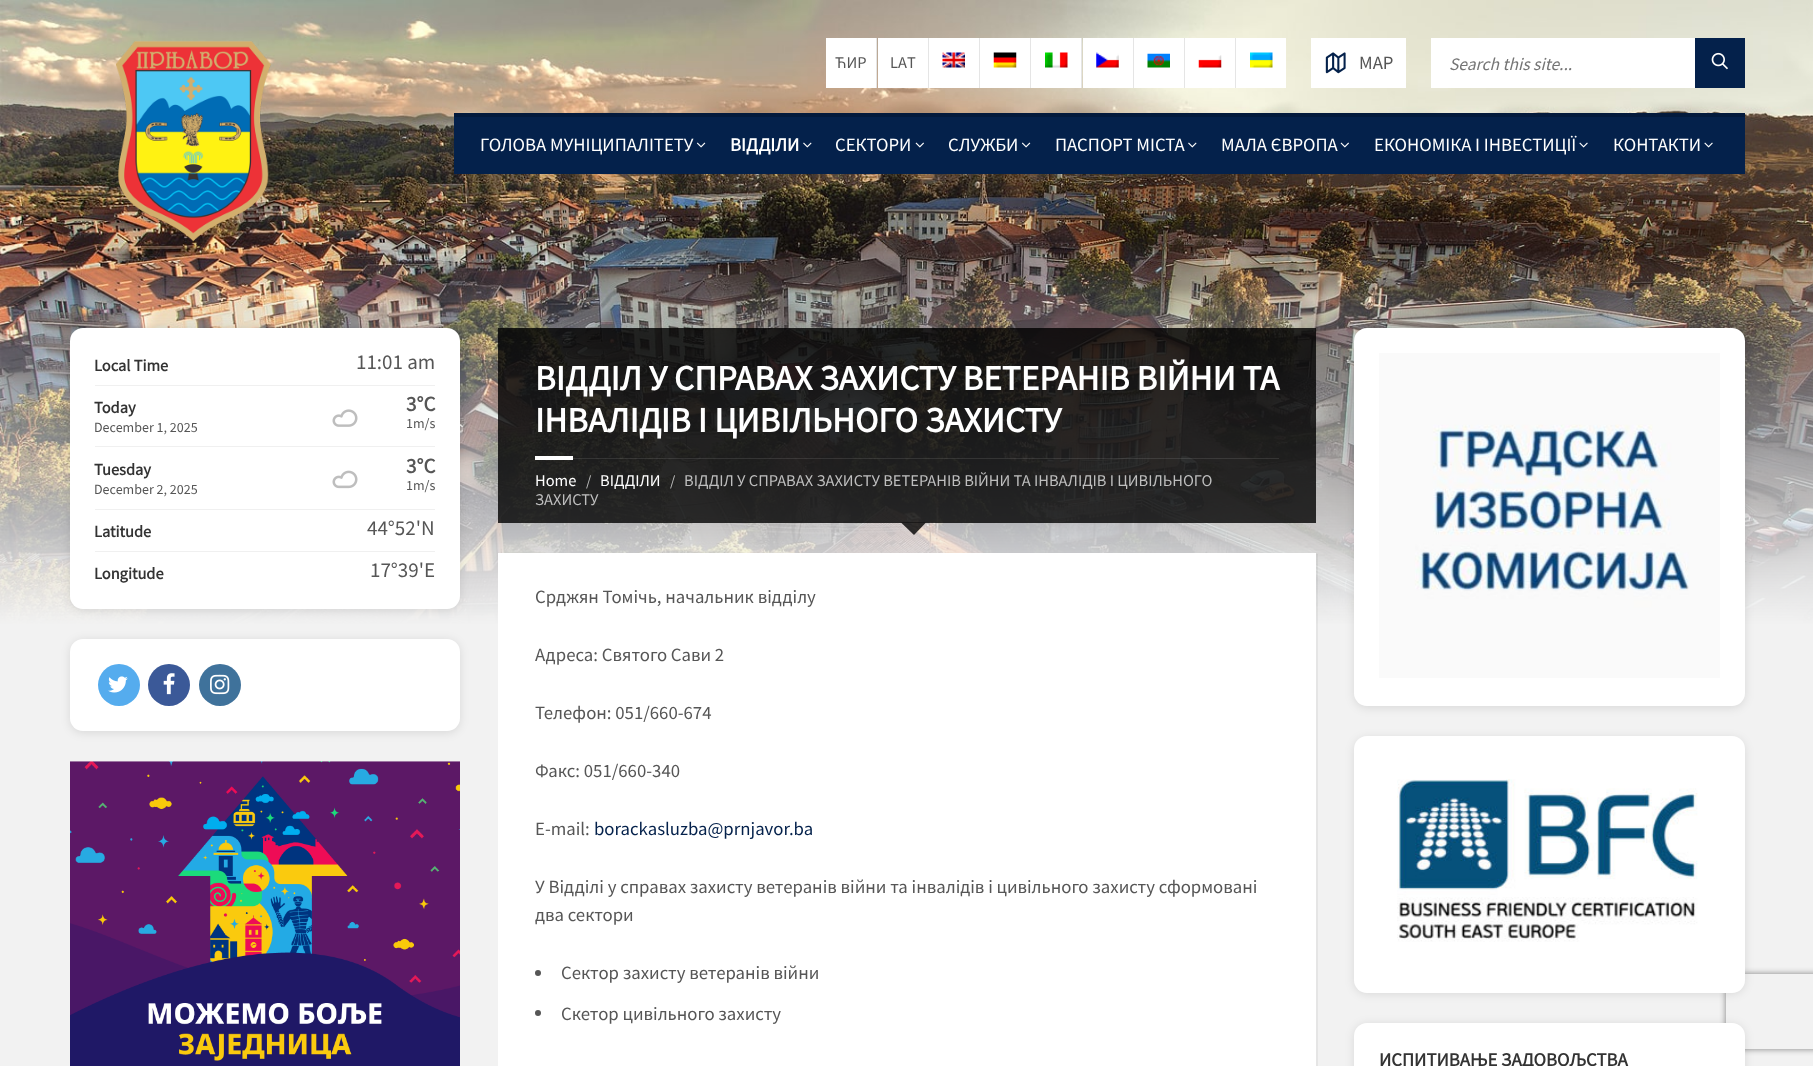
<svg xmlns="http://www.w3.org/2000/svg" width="1813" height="1066">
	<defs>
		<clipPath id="clip1"><path d="M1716 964H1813V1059H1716ZM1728.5 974H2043.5C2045 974 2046 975 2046 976.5V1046.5C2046 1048 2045 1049 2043.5 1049H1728.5C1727 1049 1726 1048 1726 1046.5V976.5C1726 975 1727 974 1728.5 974Z" clip-rule="evenodd" /></clipPath>
	</defs>
	<rect width="100%" height="100%" fill="#F2F2F2" />
	<image x="0" y="0" width="1813" height="625" href="assets/img1.png" />
	<image x="115" y="41" width="156" height="201" href="assets/img2.png" />
	<rect x="826" y="38" width="50" height="50" fill="#FFFFFF" />
	<text x="835" y="68" font-family="Source Sans Pro" font-size="16.4" fill="#565656">ЋИР</text>
	<rect x="878" y="38" width="50" height="50" fill="#FFFFFF" />
	<rect x="876" y="38" width="1" height="50" fill="#E5E5E5" />
	<text x="890" y="68" font-family="Source Sans Pro" font-size="16.4" fill="#565656">LAT</text>
	<rect x="929" y="38" width="50" height="50" fill="#FFFFFF" />
	<rect x="928" y="38" width="1" height="50" fill="#E5E5E5" />
	<image x="942" y="52" width="23" height="16" href="assets/img3.png" />
	<rect x="980" y="38" width="50" height="50" fill="#FFFFFF" />
	<rect x="979" y="38" width="1" height="50" fill="#E5E5E5" />
	<image x="993" y="52" width="24" height="16" href="assets/img4.png" />
	<rect x="1031" y="38" width="50" height="50" fill="#FFFFFF" />
	<rect x="1030" y="38" width="1" height="50" fill="#E5E5E5" />
	<image x="1045" y="52" width="23" height="16" href="assets/img5.png" />
	<rect x="1083" y="38" width="50" height="50" fill="#FFFFFF" />
	<rect x="1081" y="38" width="1" height="50" fill="#E5E5E5" />
	<image x="1096" y="52" width="23" height="16" href="assets/img6.png" />
	<rect x="1134" y="38" width="50" height="50" fill="#FFFFFF" />
	<rect x="1133" y="38" width="1" height="50" fill="#E5E5E5" />
	<image x="1147" y="53" width="23" height="15" href="assets/img7.png" />
	<rect x="1185" y="38" width="50" height="50" fill="#FFFFFF" />
	<rect x="1184" y="38" width="1" height="50" fill="#E5E5E5" />
	<image x="1198" y="55" width="24" height="13" href="assets/img8.png" />
	<rect x="1236" y="38" width="50" height="50" fill="#FFFFFF" />
	<rect x="1235" y="38" width="1" height="50" fill="#E5E5E5" />
	<image x="1250" y="52" width="23" height="16" href="assets/img9.png" />
	<rect x="1311" y="38" width="95" height="50" fill="#FFFFFF" />
	<image x="1325" y="52" width="21" height="22" href="assets/img10.png" />
	<text x="1359" y="69" font-family="Source Sans Pro" font-size="18.75" fill="#565656">MAP</text>
	<rect x="1431" y="38" width="264" height="50" fill="#FFFFFF" />
	<text x="1449" y="70" font-family="Source Sans Pro" font-size="17.5" font-style="italic" fill="#757575">Search this site...</text>
	<rect x="1695" y="38" width="50" height="50" fill="#04214B" />
	<image x="1711" y="52" width="17" height="18" href="assets/img11.png" />
	<rect x="454" y="117" width="1291" height="57" fill="#04214B" />
	<rect x="454" y="113" width="1291" height="4" fill="#031A3C" />
	<text x="480" y="151" font-family="Source Sans Pro" font-size="18.75" fill="#FFFFFF">ГОЛОВА МУНІЦИПАЛІТЕТУ</text>
	<image x="696" y="142" width="10" height="6" href="assets/img12.png" />
	<text x="730" y="151" font-family="Source Sans Pro" font-size="18.75" font-weight="700" fill="#FFFFFF">ВІДДІЛИ</text>
	<image x="803" y="142" width="9" height="6" href="assets/img13.png" />
	<text x="835" y="151" font-family="Source Sans Pro" font-size="18.75" fill="#FFFFFF">СЕКТОРИ</text>
	<image x="915" y="142" width="9" height="6" href="assets/img14.png" />
	<text x="948" y="151" font-family="Source Sans Pro" font-size="18.75" fill="#FFFFFF">СЛУЖБИ</text>
	<image x="1021" y="142" width="10" height="6" href="assets/img12.png" />
	<text x="1055" y="151" font-family="Source Sans Pro" font-size="18.75" fill="#FFFFFF">ПАСПОРТ МІСТА</text>
	<image x="1188" y="142" width="9" height="6" href="assets/img13.png" />
	<text x="1221" y="151" font-family="Source Sans Pro" font-size="18.75" fill="#FFFFFF">МАЛА ЄВРОПА</text>
	<image x="1340" y="142" width="9" height="6" href="assets/img14.png" />
	<text x="1374" y="151" font-family="Source Sans Pro" font-size="18.75" fill="#FFFFFF">ЕКОНОМІКА І ІНВЕСТИЦІЇ</text>
	<image x="1579" y="142" width="9" height="6" href="assets/img15.png" />
	<text x="1613" y="151" font-family="Source Sans Pro" font-size="18.75" fill="#FFFFFF">КОНТАКТИ</text>
	<image x="1704" y="142" width="9" height="6" href="assets/img15.png" />
	<rect x="70" y="329" width="390" height="281" rx="13" fill="#000000" fill-opacity="0.1" filter="blur(5px)" />
	<rect x="70" y="328" width="390" height="281" rx="13" fill="#FFFFFF" />
	<text x="94" y="371" font-family="Source Sans Pro" font-size="16.4" font-weight="700" fill="#333333">Local Time</text>
	<text x="356" y="369" font-family="Source Sans Pro" font-size="21" fill="#565656">11:01 am</text>
	<rect x="95" y="385" width="340" height="1" fill="#F0F0F0" />
	<text x="94" y="413" font-family="Source Sans Pro" font-size="16.4" font-weight="700" fill="#333333">Today</text>
	<text x="94" y="432" font-family="Source Sans Pro" font-size="14" fill="#565656">December 1, 2025</text>
	<text x="406" y="411" font-family="Source Sans Pro" font-size="21" font-weight="700" fill="#565656">3°C</text>
	<image x="332" y="409" width="26" height="18" href="assets/img16.png" />
	<text x="406" y="428" font-family="Source Sans Pro" font-size="14" fill="#565656">1m/s</text>
	<rect x="95" y="446" width="340" height="1" fill="#F0F0F0" />
	<text x="94" y="475" font-family="Source Sans Pro" font-size="16.4" font-weight="700" fill="#333333">Tuesday</text>
	<text x="94" y="494" font-family="Source Sans Pro" font-size="14" fill="#565656">December 2, 2025</text>
	<text x="406" y="473" font-family="Source Sans Pro" font-size="21" font-weight="700" fill="#565656">3°C</text>
	<image x="332" y="470" width="26" height="19" href="assets/img17.png" />
	<text x="406" y="490" font-family="Source Sans Pro" font-size="14" fill="#565656">1m/s</text>
	<rect x="95" y="509" width="340" height="1" fill="#F0F0F0" />
	<text x="94" y="537" font-family="Source Sans Pro" font-size="16.4" font-weight="700" fill="#333333">Latitude</text>
	<text x="367" y="535" font-family="Source Sans Pro" font-size="21" fill="#565656">44°52'N</text>
	<rect x="95" y="551" width="340" height="1" fill="#F0F0F0" />
	<text x="94" y="579" font-family="Source Sans Pro" font-size="16.4" font-weight="700" fill="#333333">Longitude</text>
	<text x="370" y="577" font-family="Source Sans Pro" font-size="21" fill="#565656">17°39'E</text>
	<rect x="70" y="640" width="390" height="93" rx="13" fill="#000000" fill-opacity="0.1" filter="blur(5px)" />
	<rect x="70" y="639" width="390" height="92" rx="13" fill="#FFFFFF" />
	<circle cx="119" cy="685" r="21" fill="#55ACEE" />
	<image x="108" y="676" width="20" height="17" href="assets/img18.png" />
	<circle cx="169" cy="685" r="21" fill="#3B5998" />
	<image x="163" y="673" width="12" height="22" href="assets/img19.png" />
	<circle cx="220" cy="685" r="21" fill="#3F729B" />
	<image x="210" y="674" width="20" height="21" href="assets/img20.png" />
	<image x="70" y="761" width="390" height="305" href="assets/img21.png" />
	<rect x="498" y="328" width="818" height="195" fill="#000000" fill-opacity="0.8" />
	<rect x="573" y="458" width="706" height="1" fill="#FFFFFF" fill-opacity="0.1" />
	<g font-family="Source Sans Pro" font-size="35.2" font-weight="700" fill="#FFFFFF">
		<text x="535" y="390">ВІДДІЛ У СПРАВАХ ЗАХИСТУ ВЕТЕРАНІВ ВІЙНИ ТА</text>
		<text x="535" y="432">ІНВАЛІДІВ І ЦИВІЛЬНОГО ЗАХИСТУ</text>
	</g>
	<rect x="535" y="456" width="38" height="4" fill="#FFFFFF" />
	<text x="535" y="486" font-family="Source Sans Pro" font-size="16.4" fill="#FFFFFF">Home</text>
	<text x="586" y="486" font-family="Source Sans Pro" font-size="15" fill="#BEBEBE">/</text>
	<text x="600" y="486" font-family="Source Sans Pro" font-size="16.4" fill="#FFFFFF">ВІДДІЛИ</text>
	<text x="670" y="486" font-family="Source Sans Pro" font-size="15" fill="#BEBEBE">/</text>
	<g font-family="Source Sans Pro" font-size="16.4" fill="#BEBEBE">
		<text x="684" y="486">ВІДДІЛ У СПРАВАХ ЗАХИСТУ ВЕТЕРАНІВ ВІЙНИ ТА ІНВАЛІДІВ І ЦИВІЛЬНОГО</text>
		<text x="535" y="505">ЗАХИСТУ</text>
	</g>
	<path d="M901 522.5H926L914 535Z" fill="#000000" fill-opacity="0.8" />
	<path d="M499 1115V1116H1318V554H1316V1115Z" fill="#000000" fill-opacity="0.05" />
	<rect x="498" y="553" width="818" height="513" fill="#FFFFFF" />
	<g font-family="Source Sans Pro" font-size="18.75" fill="#565656">
		<text x="535" y="603">Срджян Томічь, начальник відділу</text>
		<text x="535" y="661">Адреса: Святого Сави 2</text>
		<text x="535" y="719">Телефон: 051/660-674</text>
		<text x="535" y="777">Факс: 051/660-340</text>
		<text x="535" y="835">E-mail:</text>
	</g>
	<text x="594" y="835" font-family="Source Sans Pro" font-size="18.75" fill="#04214B">borackasluzba@prnjavor.ba</text>
	<g font-family="Source Sans Pro" font-size="18.75" fill="#565656">
		<text x="535" y="893">У Відділі у справах захисту ветеранів війни та інвалідів і цивільного захисту сформовані</text>
		<text x="535" y="921">два сектори</text>
	</g>
	<circle cx="538" cy="973" r="3" fill="#565656" />
	<text x="561" y="979" font-family="Source Sans Pro" font-size="18.75" fill="#565656">Сектор захисту ветеранів війни</text>
	<circle cx="538" cy="1013" r="3" fill="#565656" />
	<text x="561" y="1020" font-family="Source Sans Pro" font-size="18.75" fill="#565656">Скетор цивільного захисту</text>
	<rect x="1354" y="329" width="391" height="379" rx="13" fill="#000000" fill-opacity="0.1" filter="blur(5px)" />
	<rect x="1354" y="328" width="391" height="378" rx="13" fill="#FFFFFF" />
	<image x="1379" y="353" width="341" height="325" href="assets/img22.png" />
	<rect x="1354" y="738" width="391" height="256" rx="13" fill="#000000" fill-opacity="0.1" filter="blur(5px)" />
	<g clip-path="url(#clip1)">
		<rect x="1726" y="974" width="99" height="75" rx="2.5" fill="#808080" filter="blur(3px)" />
	</g>
	<rect x="1354" y="736" width="391" height="257" rx="13" fill="#FFFFFF" />
	<image x="1397" y="779" width="301" height="163" href="assets/img23.png" />
	<rect x="1354" y="1024" width="391" height="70" rx="13" fill="#000000" fill-opacity="0.1" filter="blur(5px)" />
	<rect x="1354" y="1023" width="391" height="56" rx="13" fill="#FFFFFF" />
	<text x="1379" y="1066" font-family="Source Sans Pro" font-size="18.75" font-weight="700" fill="#333333">ИСПИТИВАЊЕ ЗАДОВОЉСТВА</text>
</svg>
